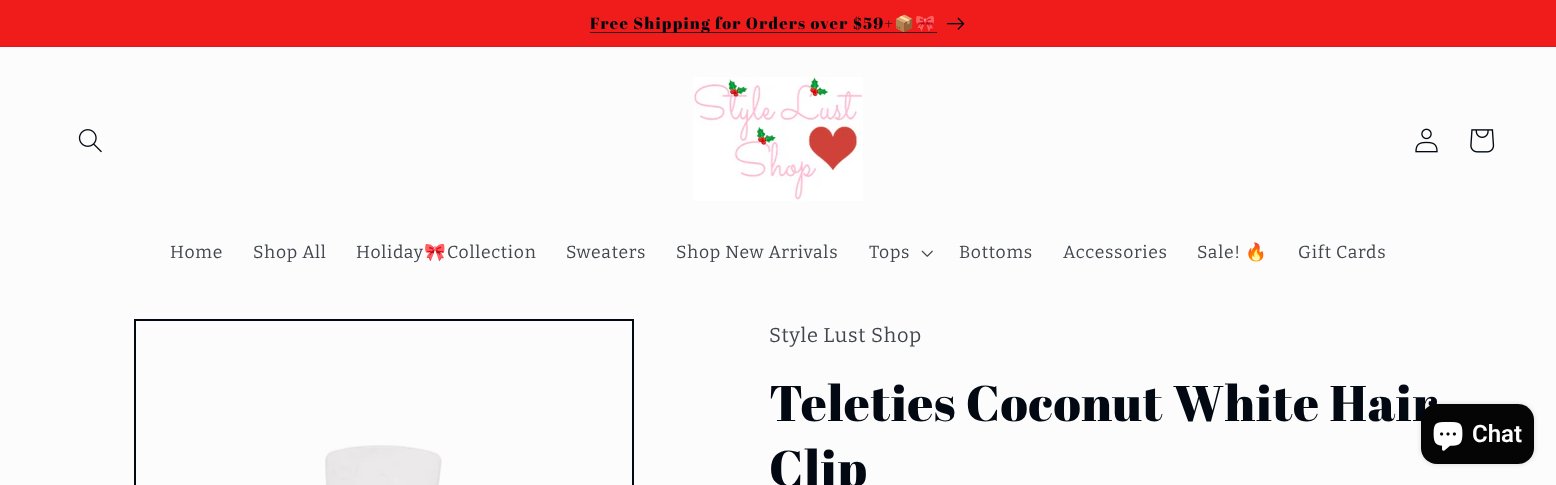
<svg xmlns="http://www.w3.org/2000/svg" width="1556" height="485">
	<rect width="100%" height="100%" fill="#FCFCFC" />
	<rect x="0" y="0" width="1556" height="46" fill="#F01C1C" />
	<rect x="0" y="46" width="1556" height="1" fill="#DD1A1B" />
	<rect x="590" y="32" width="347" height="1" fill="#3E0E15" />
	<text x="590" y="29" font-family="Abril Fatface" font-size="16.25" letter-spacing="1.25" fill="#020912">Free Shipping for Orders over $59+</text>
	<text x="894" y="29" font-family="Noto Color Emoji" font-size="16.25" letter-spacing="1.25" fill="#020912">📦🎀</text>
	<image x="947" y="17" width="18" height="13" href="assets/img1.png" />
	<image x="78" y="129" width="24" height="24" href="assets/img2.png" />
	<image x="693" y="77" width="170" height="124" href="assets/img3.png" />
	<image x="1415" y="128" width="23" height="25" href="assets/img4.png" />
	<image x="1470" y="129" width="25" height="24" href="assets/img5.png" />
	<g font-family="Bitter" font-size="17.5" letter-spacing="0.75" fill="#41464D">
		<text x="170" y="258">Home</text>
		<text x="253" y="258">Shop All</text>
		<text x="356" y="258">Holiday</text>
	</g>
	<text x="424" y="258" font-family="Noto Color Emoji" font-size="17.5" letter-spacing="0.75" fill="#41464D">🎀</text>
	<g font-family="Bitter" font-size="17.5" letter-spacing="0.75" fill="#41464D">
		<text x="447" y="258">Collection</text>
		<text x="566" y="258">Sweaters</text>
		<text x="676" y="258">Shop New Arrivals</text>
		<text x="869" y="258">Tops</text>
	</g>
	<image x="921" y="250" width="12" height="7" href="assets/img6.png" />
	<g font-family="Bitter" font-size="17.5" letter-spacing="0.75" fill="#41464D">
		<text x="959" y="258">Bottoms</text>
		<text x="1063" y="258">Accessories</text>
		<text x="1197" y="258">Sale!</text>
	</g>
	<text x="1245" y="258" font-family="Noto Color Emoji" font-size="17.5" letter-spacing="0.75" fill="#41464D">🔥</text>
	<text x="1298" y="258" font-family="Bitter" font-size="17.5" letter-spacing="0.75" fill="#41464D">Gift Cards</text>
	<rect x="135" y="320" width="498" height="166" fill="none" stroke="#020912" stroke-width="2" />
	<image x="325" y="445" width="117" height="40" href="assets/img7.png" />
	<text x="769" y="342" font-family="Bitter" font-size="20" letter-spacing="0.75" fill="#41464D">Style Lust Shop</text>
	<g font-family="Abril Fatface" font-size="50" letter-spacing="0.75" fill="#020912">
		<text x="769" y="421">Teleties Coconut White Hair</text>
		<text x="769" y="486">Clip</text>
	</g>
	<rect x="1421" y="404" width="113" height="60" rx="16" fill="#000000" fill-opacity="0.15" filter="blur(2.5px)" />
	<rect x="1421" y="404" width="113" height="60" rx="16" fill="#050505" />
	<image x="1433" y="422" width="30" height="29" href="assets/img8.png" />
	<text x="1472" y="442" font-family="Roboto" font-size="24" font-weight="600" fill="#FFFFFF">Chat</text>
</svg>
